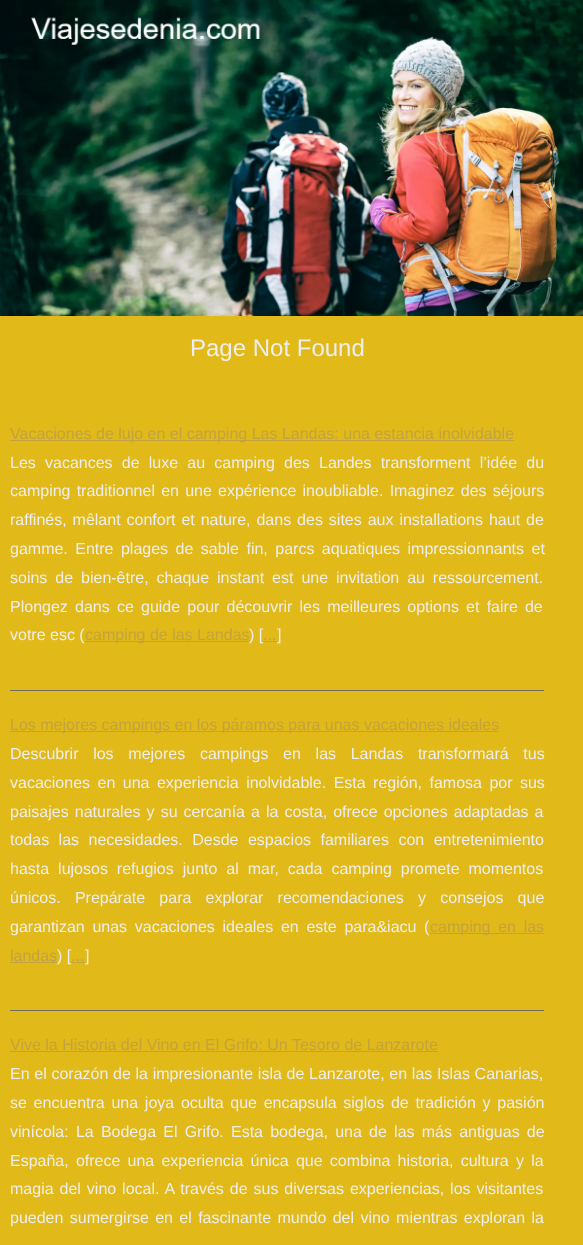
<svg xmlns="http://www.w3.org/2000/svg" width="583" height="1245">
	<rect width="100%" height="100%" fill="#E1B919" />
	<image x="0" y="0" width="583" height="316" href="assets/img1.png" />
	<text x="190" y="356" font-family="Liberation Sans" font-size="24" fill="#EEEEEE">Page Not Found</text>
	<rect x="10" y="440" width="504" height="1" fill="#C3A33E" />
	<text x="10" y="439" font-family="Liberation Sans" font-size="16" fill="#C3A33E">Vacaciones de lujo en el camping Las Landas: una estancia inolvidable</text>
	<g font-family="Liberation Sans" font-size="16" fill="#EEEEEE">
		<text x="10" y="468" word-spacing="4.75">Les vacances de luxe au camping des Landes transforment l’idée du</text>
		<text x="10" y="496" word-spacing="1.75">camping traditionnel en une expérience inoubliable. Imaginez des séjours</text>
		<text x="10" y="525" word-spacing="1.5">raffinés, mêlant confort et nature, dans des sites aux installations haut de</text>
		<text x="10" y="554" word-spacing="3">gamme. Entre plages de sable fin, parcs aquatiques impressionnants et</text>
		<text x="10" y="583" word-spacing="3.5">soins de bien-être, chaque instant est une invitation au ressourcement.</text>
		<text x="10" y="612" word-spacing="2.75">Plongez dans ce guide pour découvrir les meilleures options et faire de</text>
		<text x="10" y="640">votre esc (</text>
	</g>
	<rect x="85" y="641" width="164" height="1" fill="#C3A33E" />
	<text x="85" y="640" font-family="Liberation Sans" font-size="16" fill="#C3A33E">camping de las Landas</text>
	<text x="249" y="640" font-family="Liberation Sans" font-size="16" fill="#EEEEEE">) [</text>
	<text x="263" y="640" font-family="Liberation Sans" font-size="16" fill="#C3A33E">...</text>
	<rect x="263" y="641" width="14" height="1" fill="#C3A33E" />
	<text x="277" y="640" font-family="Liberation Sans" font-size="16" fill="#EEEEEE">]</text>
	<rect x="10" y="690" width="534" height="1" fill="#726E5E" />
	<rect x="10" y="731" width="489" height="1" fill="#C3A33E" />
	<text x="10" y="730" font-family="Liberation Sans" font-size="16" fill="#C3A33E">Los mejores campings en los páramos para unas vacaciones ideales</text>
	<g font-family="Liberation Sans" font-size="16" fill="#EEEEEE">
		<text x="10" y="759" word-spacing="10.25">Descubrir los mejores campings en las Landas transformará tus</text>
		<text x="10" y="788" word-spacing="3">vacaciones en una experiencia inolvidable. Esta región, famosa por sus</text>
		<text x="10" y="817" word-spacing="1.6">paisajes naturales y su cercanía a la costa, ofrece opciones adaptadas a</text>
		<text x="10" y="845" word-spacing="5">todas las necesidades. Desde espacios familiares con entretenimiento</text>
		<text x="10" y="874" word-spacing="4.5">hasta lujosos refugios junto al mar, cada camping promete momentos</text>
		<text x="10" y="903" word-spacing="9.75">únicos. Prepárate para explorar recomendaciones y consejos que</text>
		<text x="10" y="932" word-spacing="3.25">garantizan unas vacaciones ideales en este para&amp;iacu (</text>
	</g>
	<rect x="430" y="933" width="114" height="1" fill="#C3A33E" />
	<g font-family="Liberation Sans" font-size="16" fill="#C3A33E">
		<text x="430" y="932" word-spacing="3.25">camping en las</text>
		<text x="10" y="961">landas</text>
	</g>
	<rect x="10" y="962" width="47" height="1" fill="#C3A33E" />
	<text x="57" y="961" font-family="Liberation Sans" font-size="16" fill="#EEEEEE">) [</text>
	<text x="71" y="961" font-family="Liberation Sans" font-size="16" fill="#C3A33E">...</text>
	<rect x="71" y="962" width="14" height="1" fill="#C3A33E" />
	<text x="85" y="961" font-family="Liberation Sans" font-size="16" fill="#EEEEEE">]</text>
	<rect x="10" y="1010" width="534" height="1" fill="#726E5E" />
	<text x="10" y="1050" font-family="Liberation Sans" font-size="16" fill="#C3A33E">Vive la Historia del Vino en El Grifo: Un Tesoro de Lanzarote</text>
	<rect x="10" y="1051" width="428" height="1" fill="#C3A33E" />
	<g font-family="Liberation Sans" font-size="16" fill="#EEEEEE">
		<text x="10" y="1079" word-spacing="0.25">En el corazón de la impresionante isla de Lanzarote, en las Islas Canarias,</text>
		<text x="10" y="1108" word-spacing="2.25">se encuentra una joya oculta que encapsula siglos de tradición y pasión</text>
		<text x="10" y="1137" word-spacing="2.75">vinícola: La Bodega El Grifo. Esta bodega, una de las más antiguas de</text>
		<text x="10" y="1166" word-spacing="2.75">España, ofrece una experiencia única que combina historia, cultura y la</text>
		<text x="10" y="1194" word-spacing="1.5">magia del vino local. A través de sus diversas experiencias, los visitantes</text>
		<text x="10" y="1223" word-spacing="1.9">pueden sumergirse en el fascinante mundo del vino mientras exploran la</text>
	</g>
</svg>
